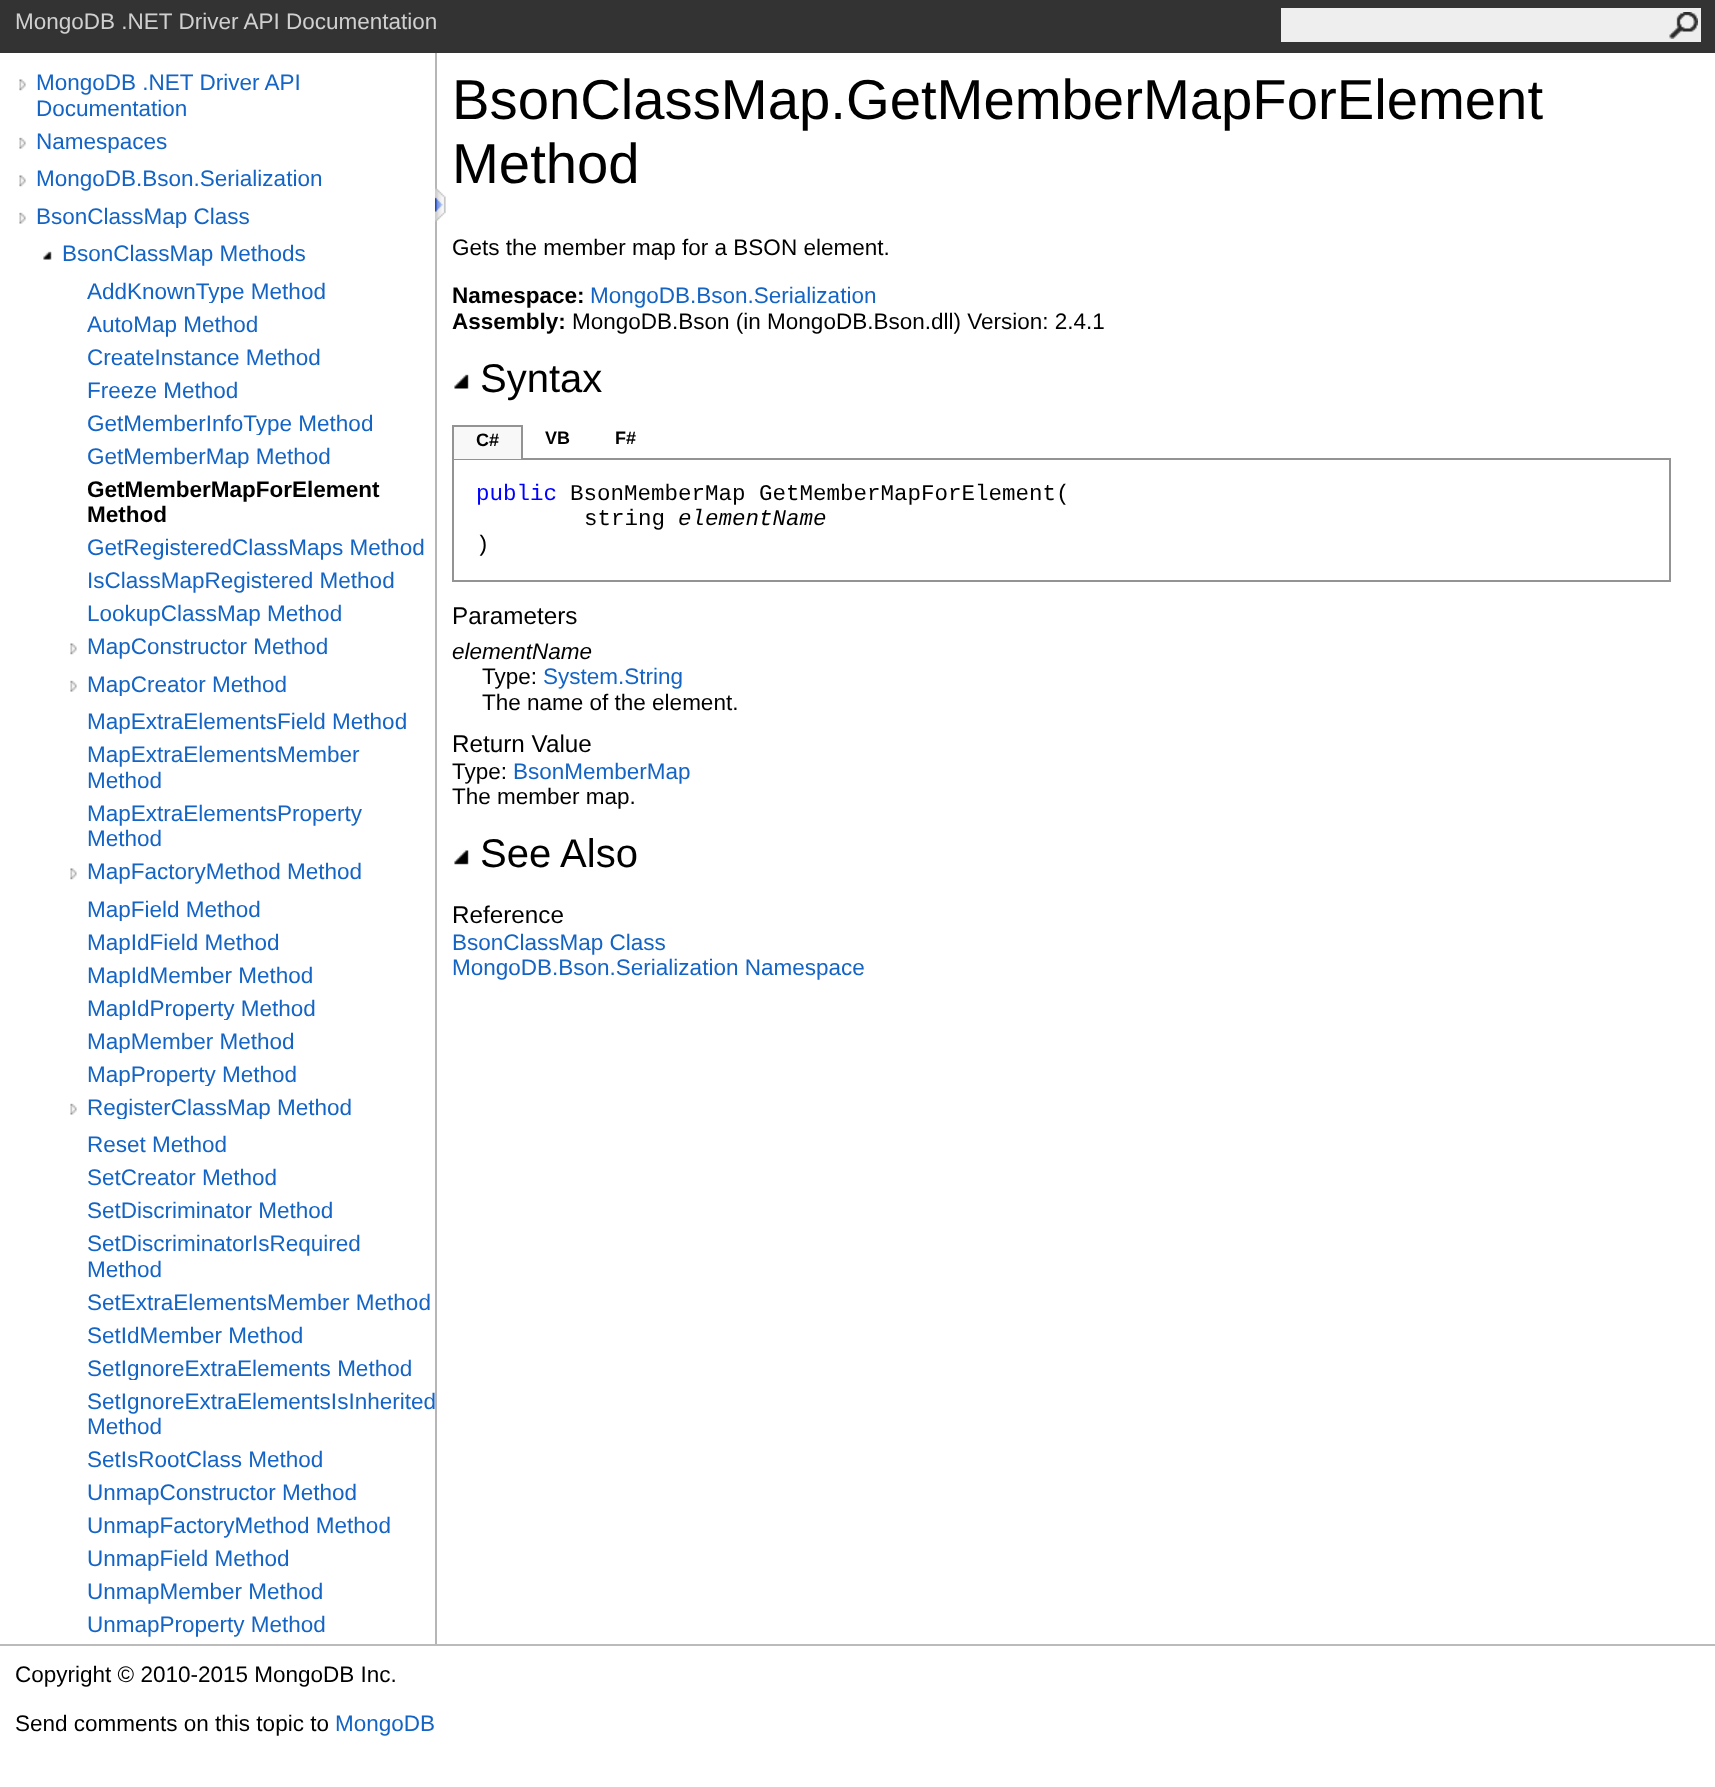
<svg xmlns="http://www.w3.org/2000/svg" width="1715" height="1787">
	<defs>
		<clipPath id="clip1"><rect x="36" y="128" width="399" height="25" /></clipPath>
		<clipPath id="clip2"><rect x="36" y="203" width="399" height="25" /></clipPath>
		<clipPath id="clip3"><rect x="87" y="278" width="348" height="25" /></clipPath>
		<clipPath id="clip4"><rect x="87" y="410" width="348" height="25" /></clipPath>
		<clipPath id="clip5"><rect x="87" y="443" width="348" height="25" /></clipPath>
		<clipPath id="clip6"><rect x="87" y="671" width="348" height="25" /></clipPath>
		<clipPath id="clip7"><rect x="87" y="896" width="348" height="25" /></clipPath>
		<clipPath id="clip8"><rect x="87" y="929" width="348" height="25" /></clipPath>
		<clipPath id="clip9"><rect x="87" y="962" width="348" height="25" /></clipPath>
		<clipPath id="clip10"><rect x="87" y="995" width="348" height="25" /></clipPath>
		<clipPath id="clip11"><rect x="87" y="1028" width="348" height="25" /></clipPath>
		<clipPath id="clip12"><rect x="87" y="1061" width="348" height="25" /></clipPath>
		<clipPath id="clip13"><rect x="87" y="1094" width="348" height="25" /></clipPath>
		<clipPath id="clip14"><rect x="87" y="1355" width="348" height="25" /></clipPath>
	</defs>
	<rect width="100%" height="100%" fill="#FFFFFF" />
	<rect x="0" y="0" width="1715" height="53" fill="#333333" />
	<text x="15" y="29" font-family="Liberation Sans" font-size="22.5" fill="#D0D0D0">MongoDB .NET Driver API Documentation</text>
	<rect x="1281" y="8" width="420" height="34" fill="#EEEEEE" />
	<image x="1669" y="12" width="29" height="27" href="assets/img1.png" />
	<rect x="435" y="53" width="2" height="1591" fill="#B6B6B6" />
	<image x="19" y="79" width="7" height="12" href="assets/img2.png" />
	<g font-family="Liberation Sans" font-size="22.5" fill="#1364C4">
		<text x="36" y="90">MongoDB .NET Driver API</text>
		<text x="36" y="116">Documentation</text>
	</g>
	<image x="19" y="137" width="7" height="12" href="assets/img3.png" />
	<g clip-path="url(#clip1)">
		<text x="36" y="149" font-family="Liberation Sans" font-size="22.5" fill="#1364C4">Namespaces</text>
	</g>
	<image x="19" y="175" width="7" height="12" href="assets/img2.png" />
	<text x="36" y="186" font-family="Liberation Sans" font-size="22.5" fill="#1364C4">MongoDB.Bson.Serialization</text>
	<image x="19" y="212" width="7" height="12" href="assets/img3.png" />
	<g clip-path="url(#clip2)">
		<text x="36" y="224" font-family="Liberation Sans" font-size="22.5" fill="#1364C4">BsonClassMap Class</text>
	</g>
	<image x="43" y="251" width="9" height="9" href="assets/img4.png" />
	<text x="62" y="261" font-family="Liberation Sans" font-size="22.5" fill="#1364C4">BsonClassMap Methods</text>
	<g clip-path="url(#clip3)">
		<text x="87" y="299" font-family="Liberation Sans" font-size="22.5" fill="#1364C4">AddKnownType Method</text>
	</g>
	<g font-family="Liberation Sans" font-size="22.5" fill="#1364C4">
		<text x="87" y="332">AutoMap Method</text>
		<text x="87" y="365">CreateInstance Method</text>
		<text x="87" y="398">Freeze Method</text>
	</g>
	<g clip-path="url(#clip4)">
		<text x="87" y="431" font-family="Liberation Sans" font-size="22.5" fill="#1364C4">GetMemberInfoType Method</text>
	</g>
	<g clip-path="url(#clip5)">
		<text x="87" y="464" font-family="Liberation Sans" font-size="22.5" fill="#1364C4">GetMemberMap Method</text>
	</g>
	<g font-family="Liberation Sans" font-size="22.5" font-weight="700" fill="#000000">
		<text x="87" y="497">GetMemberMapForElement</text>
		<text x="87" y="522">Method</text>
	</g>
	<g font-family="Liberation Sans" font-size="22.5" fill="#1364C4">
		<text x="87" y="555">GetRegisteredClassMaps Method</text>
		<text x="87" y="588">IsClassMapRegistered Method</text>
		<text x="87" y="621">LookupClassMap Method</text>
	</g>
	<image x="70" y="643" width="7" height="12" href="assets/img2.png" />
	<text x="87" y="654" font-family="Liberation Sans" font-size="22.5" fill="#1364C4">MapConstructor Method</text>
	<image x="70" y="680" width="7" height="12" href="assets/img3.png" />
	<g clip-path="url(#clip6)">
		<text x="87" y="692" font-family="Liberation Sans" font-size="22.5" fill="#1364C4">MapCreator Method</text>
	</g>
	<g font-family="Liberation Sans" font-size="22.5" fill="#1364C4">
		<text x="87" y="729">MapExtraElementsField Method</text>
		<text x="87" y="762">MapExtraElementsMember</text>
		<text x="87" y="788">Method</text>
		<text x="87" y="821">MapExtraElementsProperty</text>
		<text x="87" y="846">Method</text>
	</g>
	<image x="70" y="868" width="7" height="12" href="assets/img2.png" />
	<text x="87" y="879" font-family="Liberation Sans" font-size="22.5" fill="#1364C4">MapFactoryMethod Method</text>
	<g clip-path="url(#clip7)">
		<text x="87" y="917" font-family="Liberation Sans" font-size="22.5" fill="#1364C4">MapField Method</text>
	</g>
	<g clip-path="url(#clip8)">
		<text x="87" y="950" font-family="Liberation Sans" font-size="22.5" fill="#1364C4">MapIdField Method</text>
	</g>
	<g clip-path="url(#clip9)">
		<text x="87" y="983" font-family="Liberation Sans" font-size="22.5" fill="#1364C4">MapIdMember Method</text>
	</g>
	<g clip-path="url(#clip10)">
		<text x="87" y="1016" font-family="Liberation Sans" font-size="22.5" fill="#1364C4">MapIdProperty Method</text>
	</g>
	<g clip-path="url(#clip11)">
		<text x="87" y="1049" font-family="Liberation Sans" font-size="22.5" fill="#1364C4">MapMember Method</text>
	</g>
	<g clip-path="url(#clip12)">
		<text x="87" y="1082" font-family="Liberation Sans" font-size="22.5" fill="#1364C4">MapProperty Method</text>
	</g>
	<image x="70" y="1103" width="7" height="12" href="assets/img3.png" />
	<g clip-path="url(#clip13)">
		<text x="87" y="1115" font-family="Liberation Sans" font-size="22.5" fill="#1364C4">RegisterClassMap Method</text>
	</g>
	<g font-family="Liberation Sans" font-size="22.5" fill="#1364C4">
		<text x="87" y="1152">Reset Method</text>
		<text x="87" y="1185">SetCreator Method</text>
		<text x="87" y="1218">SetDiscriminator Method</text>
		<text x="87" y="1251">SetDiscriminatorIsRequired</text>
		<text x="87" y="1277">Method</text>
		<text x="87" y="1310">SetExtraElementsMember Method</text>
		<text x="87" y="1343">SetIdMember Method</text>
	</g>
	<g clip-path="url(#clip14)">
		<text x="87" y="1376" font-family="Liberation Sans" font-size="22.5" fill="#1364C4">SetIgnoreExtraElements Method</text>
	</g>
	<g font-family="Liberation Sans" font-size="22.5" fill="#1364C4">
		<text x="87" y="1409">SetIgnoreExtraElementsIsInherited</text>
		<text x="87" y="1434">Method</text>
		<text x="87" y="1467">SetIsRootClass Method</text>
		<text x="87" y="1500">UnmapConstructor Method</text>
		<text x="87" y="1533">UnmapFactoryMethod Method</text>
		<text x="87" y="1566">UnmapField Method</text>
		<text x="87" y="1599">UnmapMember Method</text>
		<text x="87" y="1632">UnmapProperty Method</text>
	</g>
	<image x="435" y="188" width="11" height="34" href="assets/img5.png" />
	<g font-family="Liberation Sans" font-size="56.25" fill="#000000">
		<text x="452" y="119">BsonClassMap.GetMemberMapForElement</text>
		<text x="452" y="183">Method</text>
	</g>
	<text x="452" y="255" font-family="Liberation Sans" font-size="22.5" fill="#000000">Gets the member map for a BSON element.</text>
	<text x="452" y="303" font-family="Liberation Sans" font-size="22.5" font-weight="700" fill="#000000">Namespace:</text>
	<text x="590" y="303" font-family="Liberation Sans" font-size="22.5" fill="#1364C4">MongoDB.Bson.Serialization</text>
	<text x="452" y="329" font-family="Liberation Sans" font-size="22.5" font-weight="700" fill="#000000">Assembly:</text>
	<text x="572" y="329" font-family="Liberation Sans" font-size="22.5" fill="#000000">MongoDB.Bson (in MongoDB.Bson.dll) Version: 2.4.1</text>
	<image x="454" y="374" width="15" height="15" href="assets/img6.png" />
	<text x="480" y="392" font-family="Liberation Sans" font-size="40" fill="#000000">Syntax</text>
	<rect x="453" y="459" width="1217" height="122" fill="none" stroke="#939393" stroke-width="2" />
	<rect x="454" y="427" width="67" height="32" fill="#F8F8F8" />
	<rect x="452" y="425" width="70" height="2" fill="#939393" />
	<rect x="521" y="425" width="2" height="34" fill="#939393" />
	<rect x="452" y="425" width="2" height="34" fill="#939393" />
	<g font-family="Liberation Sans" font-size="18" font-weight="700" fill="#000000">
		<text x="476" y="446">C#</text>
		<text x="545" y="444">VB</text>
		<text x="615" y="444">F#</text>
	</g>
	<text x="476" y="500" font-family="Liberation Mono" font-size="22.5" fill="#0000FF">public</text>
	<g font-family="Liberation Mono" font-size="22.5" fill="#000000">
		<text x="570" y="500">BsonMemberMap GetMemberMapForElement(</text>
		<text x="584" y="525">string</text>
	</g>
	<text x="678" y="525" font-family="Liberation Mono" font-size="22.5" font-style="italic" fill="#000000">elementName</text>
	<text x="476" y="551" font-family="Liberation Mono" font-size="22.5" fill="#000000">)</text>
	<text x="452" y="624" font-family="Liberation Sans" font-size="24.25" fill="#000000">Parameters</text>
	<text x="452" y="659" font-family="Liberation Sans" font-size="22.5" font-style="italic" fill="#000000">elementName</text>
	<text x="482" y="684" font-family="Liberation Sans" font-size="22.5" fill="#000000">Type:</text>
	<text x="543" y="684" font-family="Liberation Sans" font-size="22.5" fill="#1364C4">System.String</text>
	<text x="482" y="710" font-family="Liberation Sans" font-size="22.5" fill="#000000">The name of the element.</text>
	<text x="452" y="752" font-family="Liberation Sans" font-size="24.25" fill="#000000">Return Value</text>
	<text x="452" y="779" font-family="Liberation Sans" font-size="22.5" fill="#000000">Type:</text>
	<text x="513" y="779" font-family="Liberation Sans" font-size="22.5" fill="#1364C4">BsonMemberMap</text>
	<text x="452" y="804" font-family="Liberation Sans" font-size="22.5" fill="#000000">The member map.</text>
	<image x="454" y="850" width="15" height="15" href="assets/img7.png" />
	<text x="480" y="867" font-family="Liberation Sans" font-size="40" fill="#000000">See Also</text>
	<text x="452" y="923" font-family="Liberation Sans" font-size="24.25" fill="#000000">Reference</text>
	<g font-family="Liberation Sans" font-size="22.5" fill="#1364C4">
		<text x="452" y="950">BsonClassMap Class</text>
		<text x="452" y="975">MongoDB.Bson.Serialization Namespace</text>
	</g>
	<rect x="0" y="1644" width="1715" height="2" fill="#BBBBBB" />
	<g font-family="Liberation Sans" font-size="22.5" fill="#000000">
		<text x="15" y="1682">Copyright © 2010-2015 MongoDB Inc.</text>
		<text x="15" y="1731">Send comments on this topic to</text>
	</g>
	<text x="335" y="1731" font-family="Liberation Sans" font-size="22.5" fill="#1364C4">MongoDB</text>
</svg>
